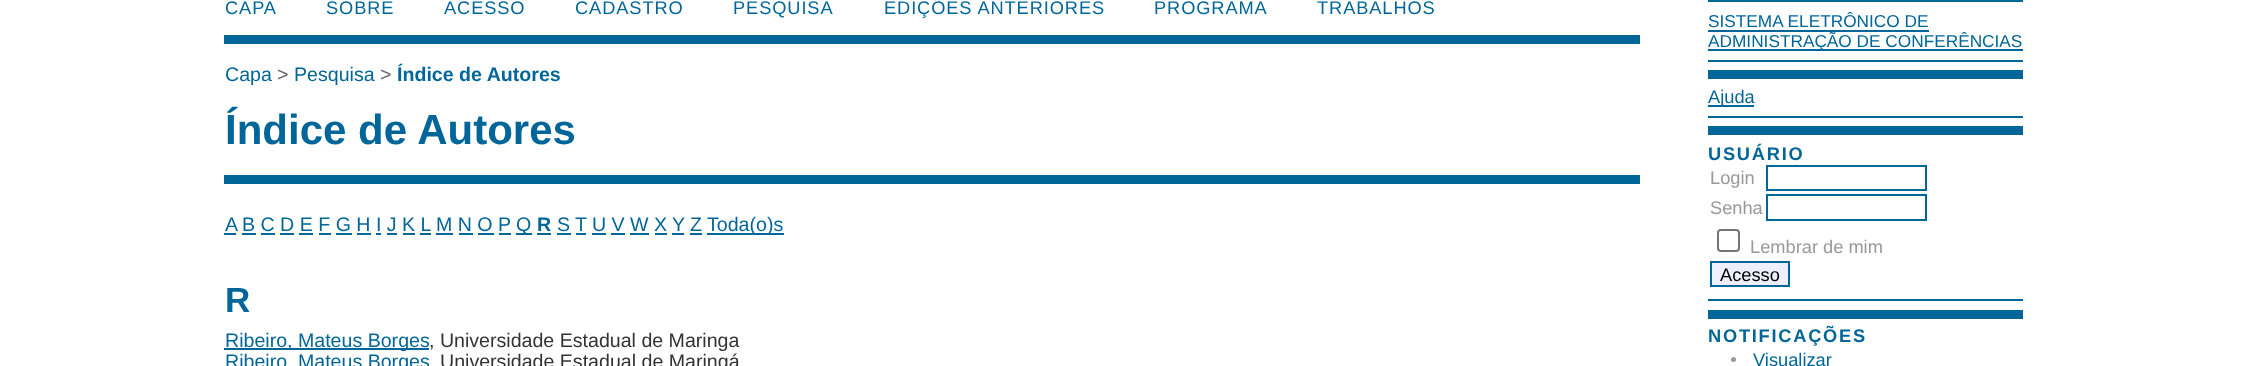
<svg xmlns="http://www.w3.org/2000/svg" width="2246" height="366">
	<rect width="100%" height="100%" fill="#FFFFFF" />
	<rect x="224" y="35" width="1416" height="9" fill="#006699" />
	<g font-family="Liberation Sans" font-size="18.25" letter-spacing="0.9" fill="#006699">
		<text x="225" y="14">CAPA</text>
		<text x="326" y="14">SOBRE</text>
		<text x="444" y="14">ACESSO</text>
		<text x="575" y="14">CADASTRO</text>
		<text x="733" y="14">PESQUISA</text>
		<text x="884" y="14">EDIÇÕES ANTERIORES</text>
		<text x="1154" y="14">PROGRAMA</text>
		<text x="1317" y="14">TRABALHOS</text>
	</g>
	<text x="225" y="81" font-family="Liberation Sans" font-size="19.6" fill="#006699">Capa</text>
	<text x="277" y="81" font-family="Liberation Sans" font-size="19.6" fill="#666666">&gt;</text>
	<text x="294" y="81" font-family="Liberation Sans" font-size="19.6" fill="#006699">Pesquisa</text>
	<text x="380" y="81" font-family="Liberation Sans" font-size="19.6" fill="#666666">&gt;</text>
	<text x="397" y="81" font-family="Liberation Sans" font-size="19.6" font-weight="700" fill="#006699">Índice de Autores</text>
	<text x="225" y="144" font-family="Liberation Sans" font-size="42" font-weight="700" fill="#006699">Índice de Autores</text>
	<rect x="224" y="175" width="1416" height="9" fill="#006699" />
	<text x="225" y="231" font-family="Liberation Sans" font-size="19.6" fill="#006699">A</text>
	<rect x="224" y="233" width="12" height="2" fill="#006699" />
	<text x="242" y="231" font-family="Liberation Sans" font-size="19.6" fill="#006699">B C D E F G H I J K L</text>
	<rect x="242" y="233" width="14" height="2" fill="#006699" />
	<text x="436" y="231" font-family="Liberation Sans" font-size="19.6" fill="#006699">M N O P</text>
	<rect x="436" y="233" width="17" height="2" fill="#006699" />
	<rect x="516" y="233" width="16" height="2" fill="#006699" />
	<text x="516" y="231" font-family="Liberation Sans" font-size="19.6" fill="#006699">Q</text>
	<text x="537" y="231" font-family="Liberation Sans" font-size="19.6" font-weight="700" fill="#006699">R</text>
	<rect x="537" y="233" width="14" height="2" fill="#006699" />
	<text x="557" y="231" font-family="Liberation Sans" font-size="19.6" fill="#006699">S</text>
	<rect x="557" y="233" width="14" height="2" fill="#006699" />
	<text x="575" y="231" font-family="Liberation Sans" font-size="19.6" fill="#006699">T</text>
	<rect x="576" y="233" width="10" height="2" fill="#006699" />
	<text x="592" y="231" font-family="Liberation Sans" font-size="19.6" fill="#006699">U V W X</text>
	<rect x="592" y="233" width="14" height="2" fill="#006699" />
	<text x="672" y="231" font-family="Liberation Sans" font-size="19.6" fill="#006699">Y</text>
	<rect x="672" y="233" width="12" height="2" fill="#006699" />
	<text x="690" y="231" font-family="Liberation Sans" font-size="19.6" fill="#006699">Z</text>
	<rect x="690" y="233" width="12" height="2" fill="#006699" />
	<rect x="707" y="233" width="77" height="2" fill="#006699" />
	<text x="707" y="231" font-family="Liberation Sans" font-size="19.6" fill="#006699">Toda(o)s</text>
	<rect x="261" y="233" width="14" height="2" fill="#006699" />
	<rect x="280" y="233" width="14" height="2" fill="#006699" />
	<rect x="299" y="233" width="14" height="2" fill="#006699" />
	<rect x="319" y="233" width="12" height="2" fill="#006699" />
	<rect x="336" y="233" width="16" height="2" fill="#006699" />
	<rect x="357" y="233" width="14" height="2" fill="#006699" />
	<rect x="376" y="233" width="5" height="2" fill="#006699" />
	<rect x="387" y="233" width="10" height="2" fill="#006699" />
	<rect x="403" y="233" width="12" height="2" fill="#006699" />
	<rect x="420" y="233" width="11" height="2" fill="#006699" />
	<rect x="459" y="233" width="14" height="2" fill="#006699" />
	<rect x="478" y="233" width="16" height="2" fill="#006699" />
	<rect x="499" y="233" width="12" height="2" fill="#006699" />
	<rect x="611" y="233" width="14" height="2" fill="#006699" />
	<rect x="630" y="233" width="19" height="2" fill="#006699" />
	<rect x="655" y="233" width="12" height="2" fill="#006699" />
	<text x="225" y="312" font-family="Liberation Sans" font-size="35" font-weight="700" fill="#006699">R</text>
	<rect x="224" y="348" width="205" height="2" fill="#006699" />
	<text x="225" y="347" font-family="Liberation Sans" font-size="19.6" fill="#006699">Ribeiro, Mateus Borges</text>
	<text x="429" y="347" font-family="Liberation Sans" font-size="19.6" fill="#333333">, Universidade Estadual de Maringa</text>
	<text x="225" y="368" font-family="Liberation Sans" font-size="19.6" fill="#006699">Ribeiro, Mateus Borges</text>
	<text x="440" y="368" font-family="Liberation Sans" font-size="19.6" fill="#333333">Universidade Estadual de Maringá</text>
	<rect x="1708" y="0" width="315" height="2" fill="#006699" />
	<rect x="1708" y="60" width="315" height="2" fill="#006699" />
	<text x="1708" y="27" font-family="Liberation Sans" font-size="17.25" fill="#006699">SISTEMA ELETRÔNICO DE</text>
	<rect x="1708" y="30" width="221" height="2" fill="#006699" />
	<rect x="1708" y="49" width="315" height="2" fill="#006699" />
	<text x="1708" y="47" font-family="Liberation Sans" font-size="17.25" fill="#006699">ADMINISTRAÇÃO DE CONFERÊNCIAS</text>
	<rect x="1708" y="70" width="315" height="9" fill="#006699" />
	<rect x="1708" y="116" width="315" height="2" fill="#006699" />
	<rect x="1708" y="105" width="46" height="2" fill="#006699" />
	<text x="1708" y="103" font-family="Liberation Sans" font-size="18.25" fill="#006699">Ajuda</text>
	<rect x="1708" y="126" width="315" height="9" fill="#006699" />
	<rect x="1708" y="299" width="315" height="2" fill="#006699" />
	<text x="1708" y="160" font-family="Liberation Sans" font-size="18.25" font-weight="700" letter-spacing="1.75" fill="#006699">USUÁRIO</text>
	<text x="1710" y="184" font-family="Liberation Sans" font-size="18.25" fill="#999999">Login</text>
	<rect x="1767" y="166" width="159" height="24" fill="none" stroke="#006699" stroke-width="2" />
	<text x="1710" y="214" font-family="Liberation Sans" font-size="18.25" fill="#999999">Senha</text>
	<rect x="1767" y="195" width="159" height="25" fill="none" stroke="#006699" stroke-width="2" />
	<rect x="1718" y="230" width="21" height="21" rx="3" fill="none" stroke="#767676" stroke-width="2" />
	<text x="1750" y="253" font-family="Liberation Sans" font-size="18.25" fill="#999999">Lembrar de mim</text>
	<rect x="1711" y="262" width="78" height="24" fill="#EEEEFF" stroke="#006699" stroke-width="2" />
	<text x="1720" y="281" font-family="Liberation Sans" font-size="18.25" fill="#000000">Acesso</text>
	<rect x="1708" y="310" width="315" height="9" fill="#006699" />
	<text x="1708" y="342" font-family="Liberation Sans" font-size="18.25" font-weight="700" letter-spacing="1.75" fill="#006699">NOTIFICAÇÕES</text>
	<circle cx="1733.5" cy="359.5" r="2.5" fill="#999999" />
	<text x="1753" y="366" font-family="Liberation Sans" font-size="18.25" fill="#006699">Visualizar</text>
</svg>
